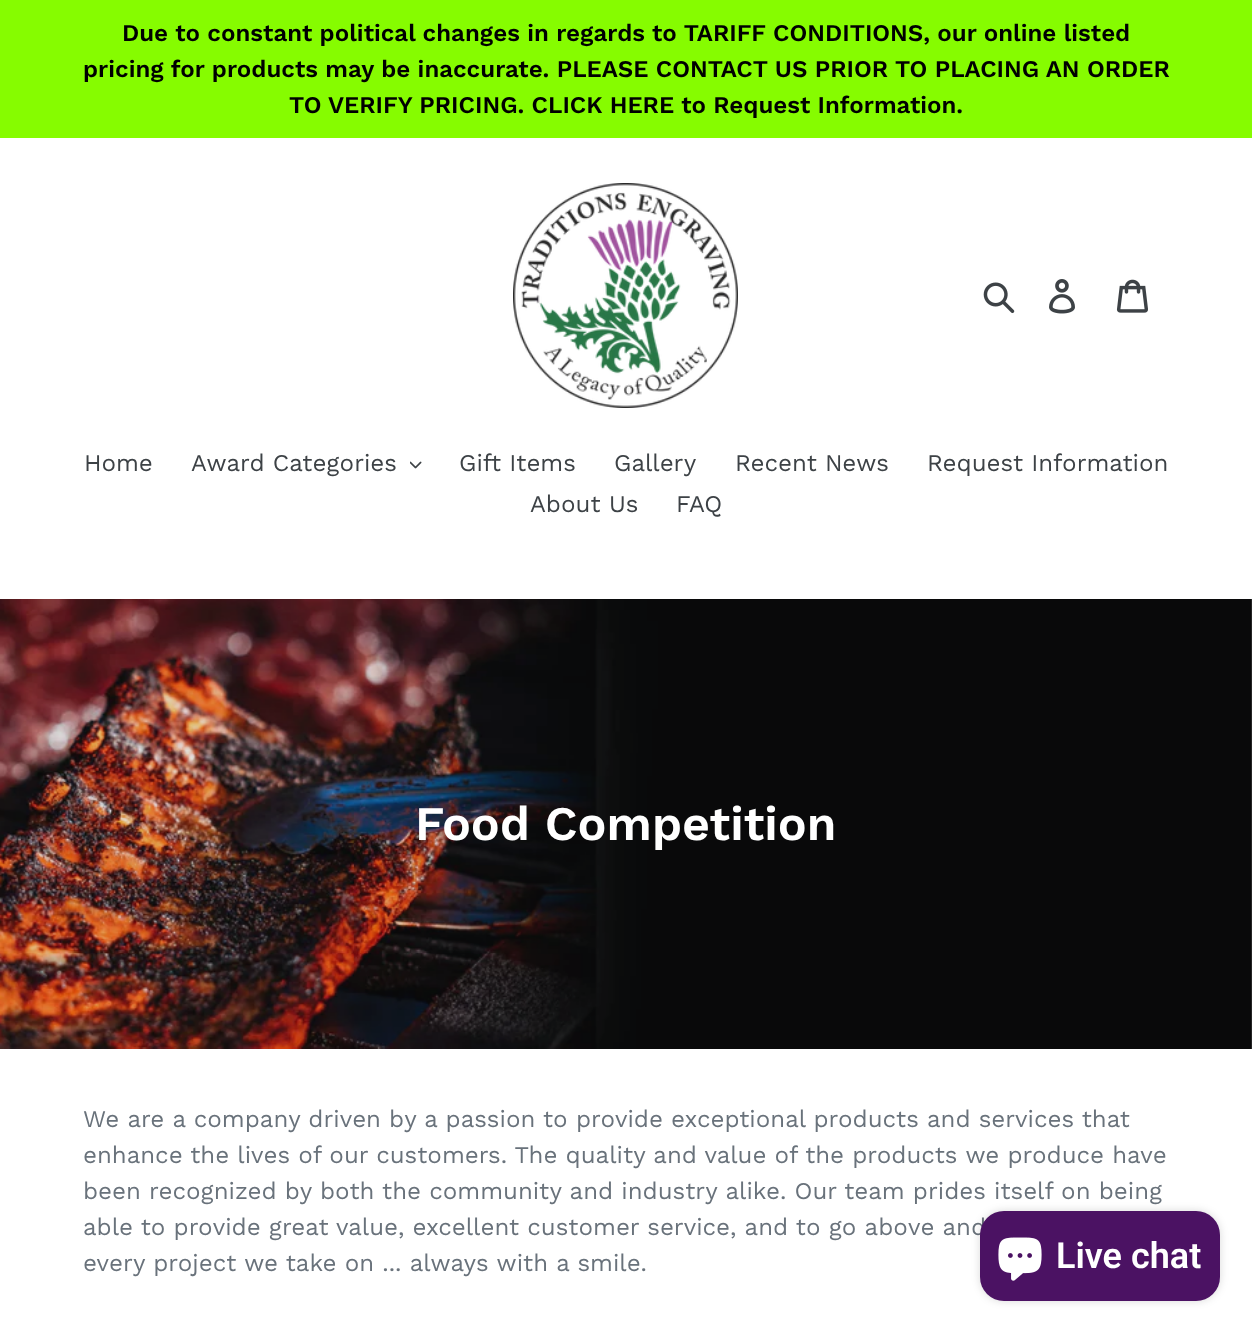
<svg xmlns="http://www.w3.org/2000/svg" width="1252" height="1331">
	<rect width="100%" height="100%" fill="#FFFFFF" />
	<rect x="0" y="0" width="1252" height="138" fill="#86FC00" />
	<g font-family="Work Sans" font-size="24" font-weight="600" fill="#000000">
		<text x="122" y="41">Due to constant political changes in regards to TARIFF CONDITIONS, our online listed</text>
		<text x="83" y="77">pricing for products may be inaccurate. PLEASE CONTACT US PRIOR TO PLACING AN ORDER</text>
		<text x="289" y="113">TO VERIFY PRICING. CLICK HERE to Request Information.</text>
	</g>
	<image x="513" y="183" width="225" height="225" href="assets/img1.png" />
	<image x="983" y="282" width="32" height="32" href="assets/img2.png" />
	<image x="1049" y="279" width="26" height="35" href="assets/img3.png" />
	<image x="1116" y="279" width="32" height="34" href="assets/img4.png" />
	<g font-family="Work Sans" font-size="24" fill="#3D4246">
		<text x="84" y="471">Home</text>
		<text x="191" y="471">Award Categories</text>
	</g>
	<image x="410" y="461" width="12" height="8" href="assets/img5.png" />
	<g font-family="Work Sans" font-size="24" fill="#3D4246">
		<text x="459" y="471">Gift Items</text>
		<text x="614" y="471">Gallery</text>
		<text x="735" y="471">Recent News</text>
		<text x="927" y="471">Request Information</text>
		<text x="530" y="512">About Us</text>
		<text x="676" y="512">FAQ</text>
	</g>
	<image x="0" y="599" width="1252" height="450" href="assets/img6.png" />
	<text x="415" y="840" font-family="Work Sans" font-size="48" font-weight="600" fill="#FFFFFF">Food Competition</text>
	<g font-family="Work Sans" font-size="24" fill="#69727B">
		<text x="83" y="1127">We are a company driven by a passion to provide exceptional products and services that</text>
		<text x="83" y="1163">enhance the lives of our customers. The quality and value of the products we produce have</text>
		<text x="83" y="1199">been recognized by both the community and industry alike. Our team prides itself on being</text>
		<text x="83" y="1235">able to provide great value, excellent customer service, and to go above and</text>
		<text x="83" y="1271">every project we take on ... always with a smile.</text>
	</g>
	<rect x="980" y="1211" width="240" height="90" rx="24" fill="#000000" fill-opacity="0.15" filter="blur(4px)" />
	<rect x="980" y="1211" width="240" height="90" rx="24" fill="#4B1263" />
	<image x="998" y="1237" width="44" height="44" href="assets/img7.png" />
	<text x="1056" y="1268" font-family="Roboto" font-size="36" font-weight="600" fill="#FFFFFF">Live chat</text>
</svg>
